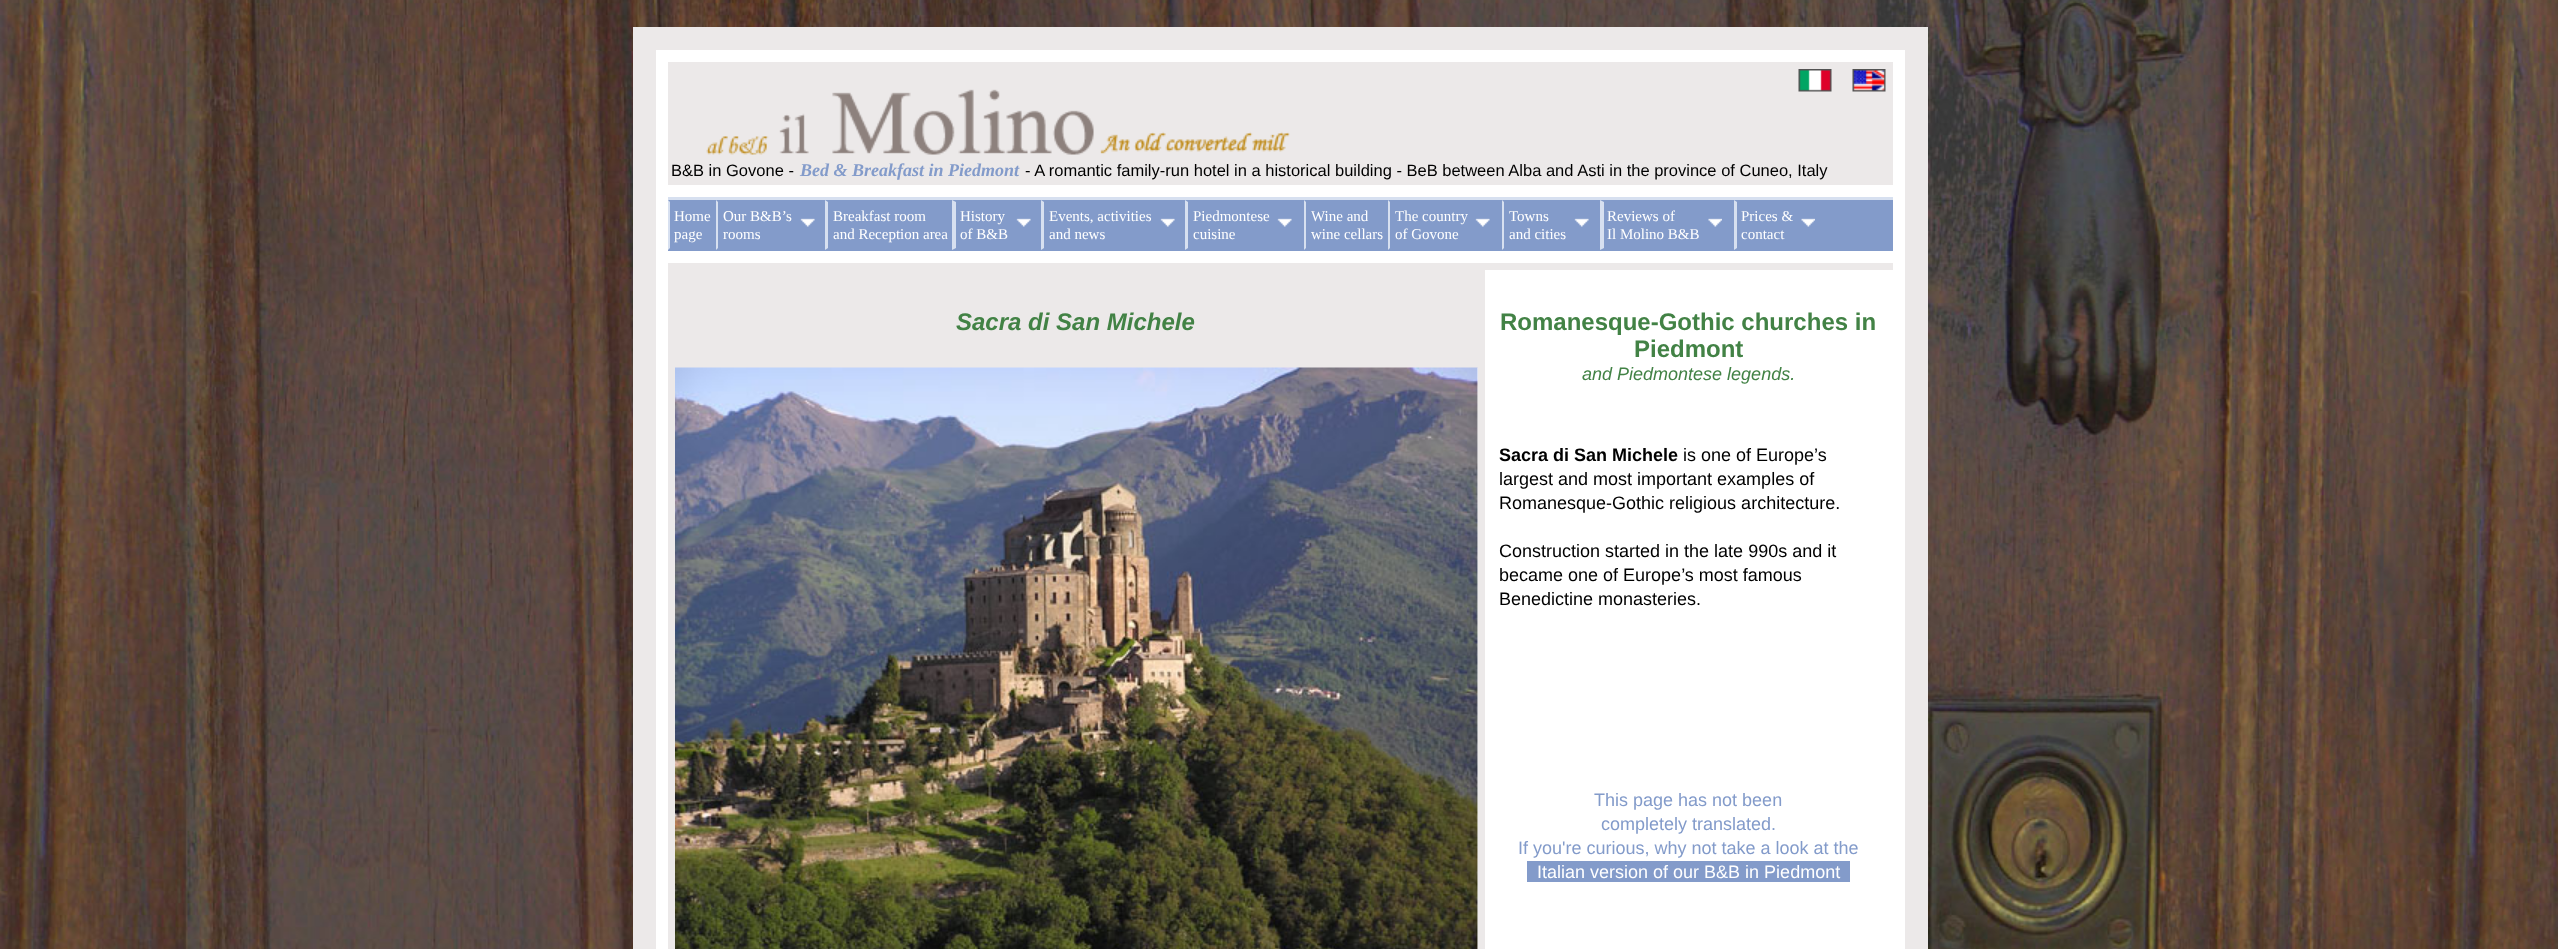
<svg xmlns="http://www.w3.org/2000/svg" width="2558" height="949">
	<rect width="100%" height="100%" fill="#FFFFFF" />
	<image x="0" y="0" width="2558" height="949" href="assets/img1.png" />
	<rect x="644.5" y="38.5" width="1272" height="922" fill="#FFFFFF" stroke="#ECE9E9" stroke-width="23" />
	<rect x="668" y="62" width="1225" height="123" fill="#ECE9E9" />
	<image x="1798" y="69" width="34" height="23" href="assets/img2.png" />
	<image x="1852" y="69" width="34" height="23" href="assets/img3.png" />
	<image x="706" y="89" width="584" height="66" href="assets/img4.png" />
	<text x="671" y="176" font-family="Liberation Sans" font-size="16.5" fill="#000000">B&amp;B in Govone -</text>
	<text x="800" y="176" font-family="Liberation Serif" font-size="18" font-weight="700" font-style="italic" fill="#839BCA">Bed &amp; Breakfast in Piedmont</text>
	<text x="1025" y="176" font-family="Liberation Sans" font-size="16.5" fill="#000000">- A romantic family-run hotel in a historical building - BeB between Alba and Asti in the province of Cuneo, Italy</text>
	<rect x="668" y="200" width="1225" height="51" fill="#839BCA" />
	<rect x="668" y="197" width="1225" height="3" fill="#D7E0F0" />
	<path d="M668 250V200L670 202V248Z" fill="#D7E0F0" />
	<g font-family="Liberation Serif" font-size="15" fill="#FFFFFF">
		<text x="674" y="221">Home</text>
		<text x="674" y="239">page</text>
	</g>
	<path d="M716 250V200L718 202V248Z" fill="#D7E0F0" />
	<text x="723" y="221" font-family="Liberation Serif" font-size="15" fill="#FFFFFF">Our B&amp;B’s</text>
	<image x="800" y="218" width="15" height="9" href="assets/img5.png" />
	<text x="723" y="239" font-family="Liberation Serif" font-size="15" fill="#FFFFFF">rooms</text>
	<path d="M825 250V200L828 202V248Z" fill="#D7E0F0" />
	<g font-family="Liberation Serif" font-size="15" fill="#FFFFFF">
		<text x="833" y="221">Breakfast room</text>
		<text x="833" y="239">and Reception area</text>
	</g>
	<path d="M952 250V200L956 202V248Z" fill="#D7E0F0" />
	<text x="960" y="221" font-family="Liberation Serif" font-size="15" fill="#FFFFFF">History</text>
	<image x="1016" y="218" width="15" height="9" href="assets/img5.png" />
	<text x="960" y="239" font-family="Liberation Serif" font-size="15" fill="#FFFFFF">of B&amp;B</text>
	<path d="M1041 250V200L1044 202V248Z" fill="#D7E0F0" />
	<text x="1049" y="221" font-family="Liberation Serif" font-size="15" fill="#FFFFFF">Events, activities</text>
	<image x="1160" y="218" width="15" height="9" href="assets/img6.png" />
	<text x="1049" y="239" font-family="Liberation Serif" font-size="15" fill="#FFFFFF">and news</text>
	<path d="M1185 250V200L1188 202V248Z" fill="#D7E0F0" />
	<text x="1193" y="221" font-family="Liberation Serif" font-size="15" fill="#FFFFFF">Piedmontese</text>
	<image x="1277" y="218" width="15" height="9" href="assets/img7.png" />
	<text x="1193" y="239" font-family="Liberation Serif" font-size="15" fill="#FFFFFF">cuisine</text>
	<path d="M1304 250V200L1306 202V248Z" fill="#D7E0F0" />
	<g font-family="Liberation Serif" font-size="15" fill="#FFFFFF">
		<text x="1311" y="221">Wine and</text>
		<text x="1311" y="239">wine cellars</text>
	</g>
	<path d="M1388 250V200L1390 202V248Z" fill="#D7E0F0" />
	<text x="1395" y="221" font-family="Liberation Serif" font-size="15" fill="#FFFFFF">The country</text>
	<image x="1475" y="218" width="15" height="9" href="assets/img6.png" />
	<text x="1395" y="239" font-family="Liberation Serif" font-size="15" fill="#FFFFFF">of Govone</text>
	<path d="M1502 250V200L1504 202V248Z" fill="#D7E0F0" />
	<text x="1509" y="221" font-family="Liberation Serif" font-size="15" fill="#FFFFFF">Towns</text>
	<image x="1574" y="218" width="15" height="9" href="assets/img5.png" />
	<text x="1509" y="239" font-family="Liberation Serif" font-size="15" fill="#FFFFFF">and cities</text>
	<path d="M1600 250V200L1604 202V248Z" fill="#D7E0F0" />
	<text x="1607" y="221" font-family="Liberation Serif" font-size="15" fill="#FFFFFF">Reviews of</text>
	<image x="1708" y="218" width="14" height="9" href="assets/img8.png" />
	<text x="1607" y="239" font-family="Liberation Serif" font-size="15" fill="#FFFFFF">Il Molino B&amp;B</text>
	<path d="M1734 250V200L1737 202V248Z" fill="#D7E0F0" />
	<text x="1741" y="221" font-family="Liberation Serif" font-size="15" fill="#FFFFFF">Prices &amp;</text>
	<image x="1801" y="218" width="14" height="9" href="assets/img9.png" />
	<text x="1741" y="239" font-family="Liberation Serif" font-size="15" fill="#FFFFFF">contact</text>
	<rect x="668" y="263" width="1225" height="7" fill="#ECE9E9" />
	<rect x="668" y="270" width="817" height="679" fill="#ECE9E9" />
	<text x="956" y="330" font-family="Liberation Sans" font-size="24" font-weight="700" font-style="italic" fill="#428245">Sacra di San Michele</text>
	<rect x="1477" y="368" width="1" height="581" fill="#FFFFFF" />
	<image x="675" y="367" width="803" height="582" href="assets/img10.png" />
	<g font-family="Liberation Sans" font-size="24" font-weight="700" fill="#428245">
		<text x="1500" y="330">Romanesque-Gothic churches in</text>
		<text x="1634" y="357">Piedmont</text>
	</g>
	<text x="1582" y="380" font-family="Liberation Sans" font-size="18" font-style="italic" fill="#428245">and Piedmontese legends.</text>
	<text x="1499" y="461" font-family="Liberation Sans" font-size="18" font-weight="700" fill="#000000">Sacra di San Michele</text>
	<g font-family="Liberation Sans" font-size="18" fill="#000000">
		<text x="1683" y="461">is one of Europe’s</text>
		<text x="1499" y="485">largest and most important examples of</text>
		<text x="1499" y="509">Romanesque-Gothic religious architecture.</text>
		<text x="1499" y="557">Construction started in the late 990s and it</text>
		<text x="1499" y="581">became one of Europe’s most famous</text>
		<text x="1499" y="605">Benedictine monasteries.</text>
	</g>
	<g font-family="Liberation Sans" font-size="18" fill="#839BCA">
		<text x="1594" y="806">This page has not been</text>
		<text x="1601" y="830">completely translated.</text>
		<text x="1518" y="854">If you're curious, why not take a look at the</text>
	</g>
	<rect x="1527" y="861" width="323" height="21" fill="#839BCA" />
	<text x="1537" y="878" font-family="Liberation Sans" font-size="18" fill="#FFFFFF">Italian version of our B&amp;B in Piedmont</text>
</svg>
